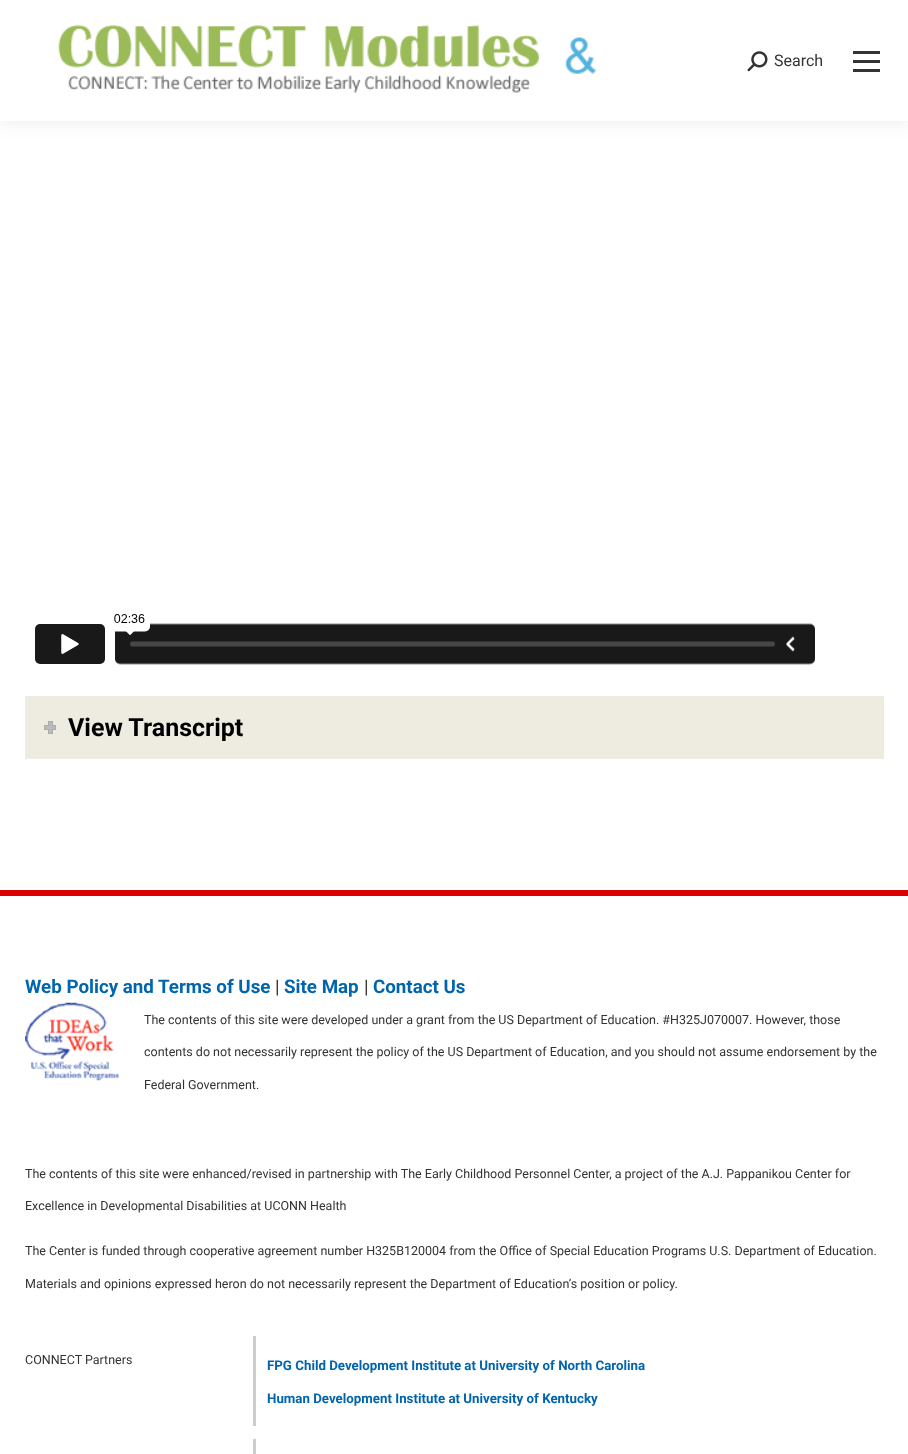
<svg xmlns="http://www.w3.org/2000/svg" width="908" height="1454">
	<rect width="100%" height="100%" fill="#FFFFFF" />
	<rect x="-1" y="-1" width="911" height="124" fill="#000000" fill-opacity="0.07" filter="blur(9.5px)" />
	<rect x="0" y="0" width="908" height="121" fill="#FFFFFF" />
	<image x="58" y="24" width="539" height="69" href="assets/img1.png" />
	<image x="747" y="51" width="21" height="21" href="assets/img2.png" />
	<text x="774" y="66" font-family="Roboto" font-size="16" fill="#333333">Search</text>
	<rect x="853" y="51" width="27" height="3" fill="#333333" />
	<rect x="853" y="60" width="27" height="3" fill="#333333" />
	<rect x="853" y="69" width="27" height="3" fill="#333333" />
	<image x="35" y="614" width="780" height="51" href="assets/img3.png" />
	<rect x="25" y="696" width="859" height="63" fill="#EEECE1" />
	<rect x="44.5" y="725.5" width="11" height="4" fill="none" stroke="#ACACAC" />
	<rect x="48.5" y="721.5" width="4" height="12" fill="#BABABA" stroke="#ACACAC" />
	<rect x="45" y="726" width="10" height="3" fill="#BABABA" />
	<text x="68" y="736" font-family="Roboto" font-size="25" font-weight="700" fill="#000000">View Transcript</text>
	<rect x="0" y="890" width="908" height="6" fill="#DB0101" />
	<text x="25" y="993" font-family="Roboto" font-size="18.75" font-weight="700" fill="#0065AD">Web Policy and Terms of Use</text>
	<text x="275" y="993" font-family="Roboto" font-size="18.75" fill="#333333">|</text>
	<text x="284" y="993" font-family="Roboto" font-size="18.75" font-weight="700" fill="#0065AD">Site Map</text>
	<text x="364" y="993" font-family="Roboto" font-size="18.75" fill="#333333">|</text>
	<text x="373" y="993" font-family="Roboto" font-size="18.75" font-weight="700" fill="#0065AD">Contact Us</text>
	<image x="25" y="1002" width="94" height="79" href="assets/img4.png" />
	<g font-family="Roboto" font-size="12.5" fill="#333333">
		<text x="144" y="1024">The contents of this site were developed under a grant from the US Department of Education. #H325J070007. However, those</text>
		<text x="144" y="1056">contents do not necessarily represent the policy of the US Department of Education, and you should not assume endorsement by the</text>
		<text x="144" y="1089">Federal Government.</text>
		<text x="25" y="1178">The contents of this site were enhanced/revised in partnership with The Early Childhood Personnel Center, a project of the A.J. Pappanikou Center for</text>
		<text x="25" y="1210">Excellence in Developmental Disabilities at UCONN Health</text>
		<text x="25" y="1255">The Center is funded through cooperative agreement number H325B120004 from the Office of Special Education Programs U.S. Department of Education.</text>
		<text x="25" y="1288">Materials and opinions expressed heron do not necessarily represent the Department of Education’s position or policy.</text>
		<text x="25" y="1364">CONNECT Partners</text>
	</g>
	<rect x="253" y="1336" width="3" height="90" fill="#CCCCCC" />
	<g font-family="Roboto" font-size="13.3" font-weight="700" fill="#0065AD">
		<text x="267" y="1370">FPG Child Development Institute at University of North Carolina</text>
		<text x="267" y="1403">Human Development Institute at University of Kentucky</text>
	</g>
	<rect x="253" y="1439" width="3" height="15" fill="#CCCCCC" />
</svg>
